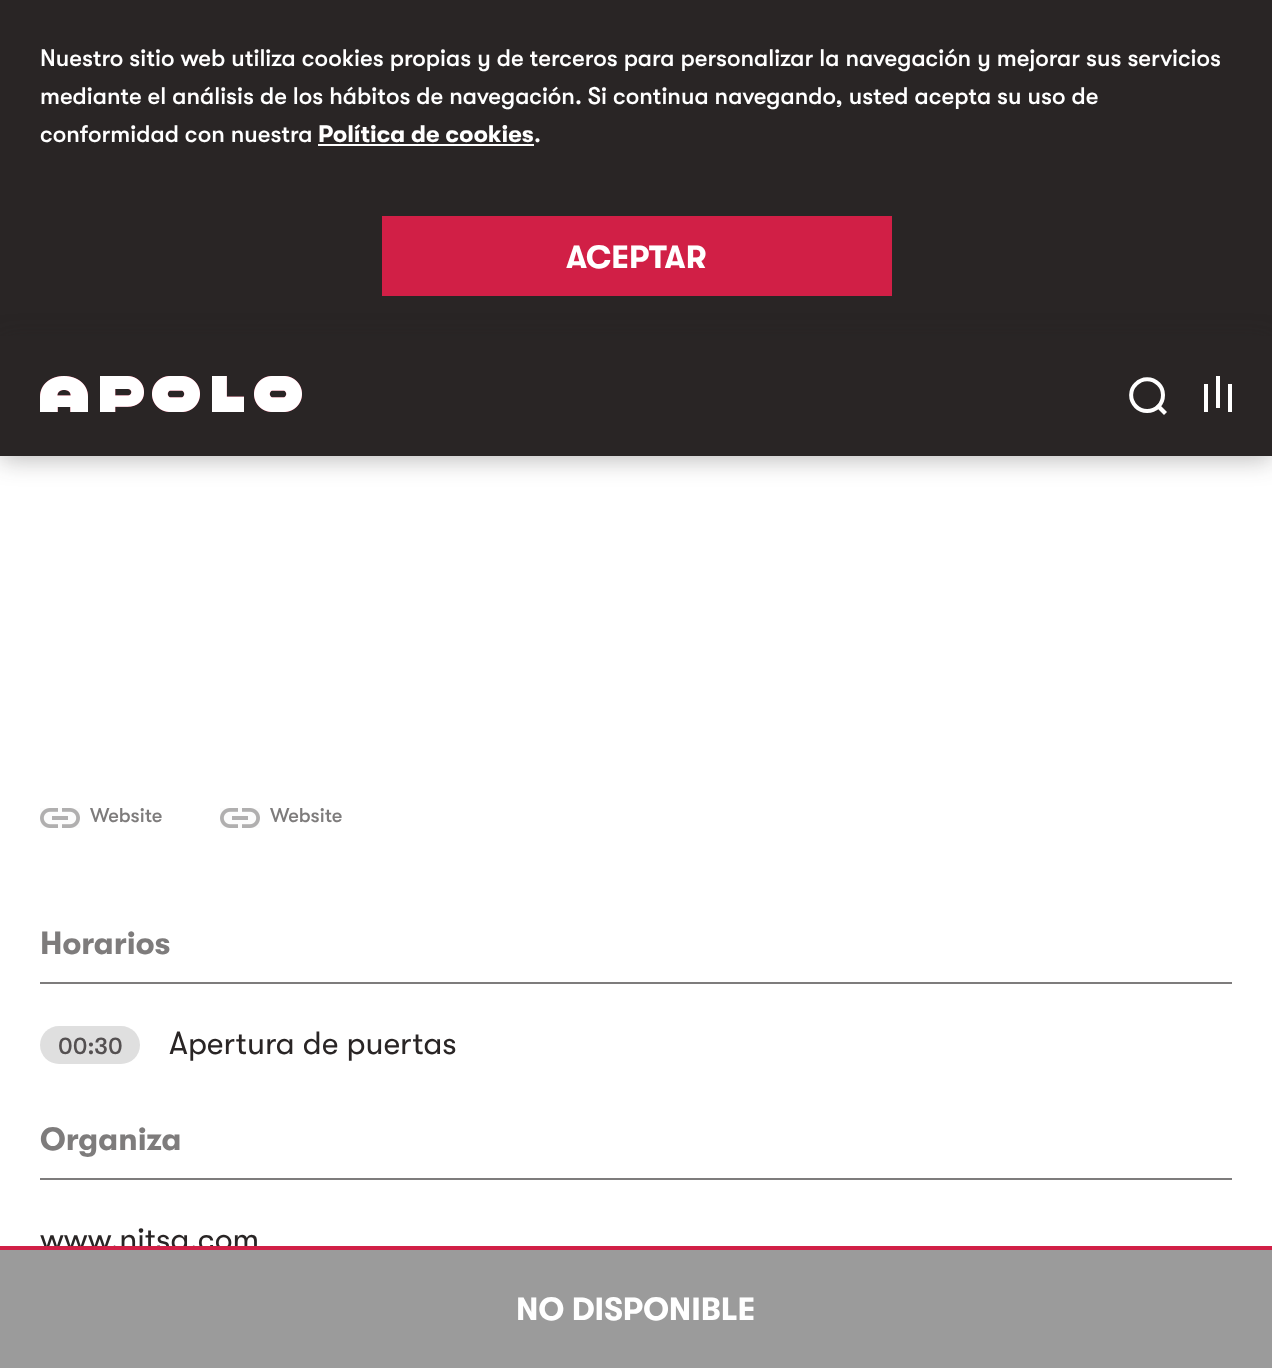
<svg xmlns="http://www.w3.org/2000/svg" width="1272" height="1368">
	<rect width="100%" height="100%" fill="#FFFFFF" />
	<rect x="0" y="0" width="1272" height="336" fill="#292525" />
	<g font-family="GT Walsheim" font-size="24" font-weight="500" fill="#FFFFFF">
		<text x="40" y="66">Nuestro sitio web utiliza cookies propias y de terceros para personalizar la navegación y mejorar sus servicios</text>
		<text x="40" y="104">mediante el análisis de los hábitos de navegación. Si continua navegando, usted acepta su uso de</text>
		<text x="40" y="142">conformidad con nuestra</text>
	</g>
	<text x="318" y="142" font-family="GT Walsheim" font-size="24" font-weight="700" fill="#FFFFFF">Política de cookies</text>
	<rect x="318" y="144" width="216" height="2" fill="#FFFFFF" />
	<text x="534" y="142" font-family="GT Walsheim" font-size="24" font-weight="500" fill="#FFFFFF">.</text>
	<rect x="382" y="216" width="510" height="80" fill="#D11F46" />
	<text x="566" y="268" font-family="GT Walsheim" font-size="32" font-weight="700" fill="#FFFFFF">ACEPTAR</text>
	<rect x="0" y="340" width="1272" height="120" fill="#292525" fill-opacity="0.3" filter="blur(12px)" />
	<rect x="0" y="336" width="1272" height="120" fill="#292525" />
	<image x="40" y="376" width="262" height="36" href="assets/img1.png" />
	<path d="M1136 384C1142 377.5 1152 377.5 1158.5 384C1164.5 390 1164.5 400 1158.5 406.5C1152 412.5 1142 412.5 1136 406.5C1129.5 400 1129.5 390 1136 384Z" fill="none" stroke="#FFFFFF" stroke-width="4" />
	<path d="M1155.5 406.5L1158.5 403.5L1167 412L1164 415Z" fill="#FFFFFF" fill-rule="evenodd" />
	<rect x="1204" y="384" width="4" height="28" fill="#FFFFFF" />
	<rect x="1216" y="376" width="4" height="32" fill="#FFFFFF" />
	<rect x="1228" y="384" width="4" height="28" fill="#FFFFFF" />
	<image x="40" y="808" width="40" height="20" href="assets/img2.png" />
	<text x="90" y="822" font-family="GT Walsheim" font-size="20" font-weight="500" fill="#7E7C7C">Website</text>
	<image x="220" y="808" width="40" height="20" href="assets/img2.png" />
	<text x="270" y="822" font-family="GT Walsheim" font-size="20" font-weight="500" fill="#7E7C7C">Website</text>
	<text x="40" y="954" font-family="GT Walsheim" font-size="32" font-weight="700" fill="#7E7C7C">Horarios</text>
	<rect x="40" y="982" width="1192" height="2" fill="#7E7C7C" />
	<rect x="40" y="1026" width="100" height="38" rx="19" fill="#DFDFDF" />
	<text x="58" y="1054" font-family="GT Walsheim" font-size="24" font-weight="500" fill="#545051">00:30</text>
	<text x="169" y="1054" font-family="GT Walsheim" font-size="32" fill="#292525">Apertura de puertas</text>
	<text x="40" y="1150" font-family="GT Walsheim" font-size="32" font-weight="700" fill="#7E7C7C">Organiza</text>
	<rect x="40" y="1178" width="1192" height="2" fill="#7E7C7C" />
	<text x="40" y="1250" font-family="GT Walsheim" font-size="32" fill="#292525">www.nitsa.com</text>
	<rect x="0" y="1250" width="1272" height="118" fill="#9B9B9B" />
	<rect x="0" y="1246" width="1272" height="4" fill="#D11F46" />
	<text x="516" y="1320" font-family="GT Walsheim" font-size="32" font-weight="700" fill="#FFFFFF">NO DISPONIBLE</text>
</svg>
